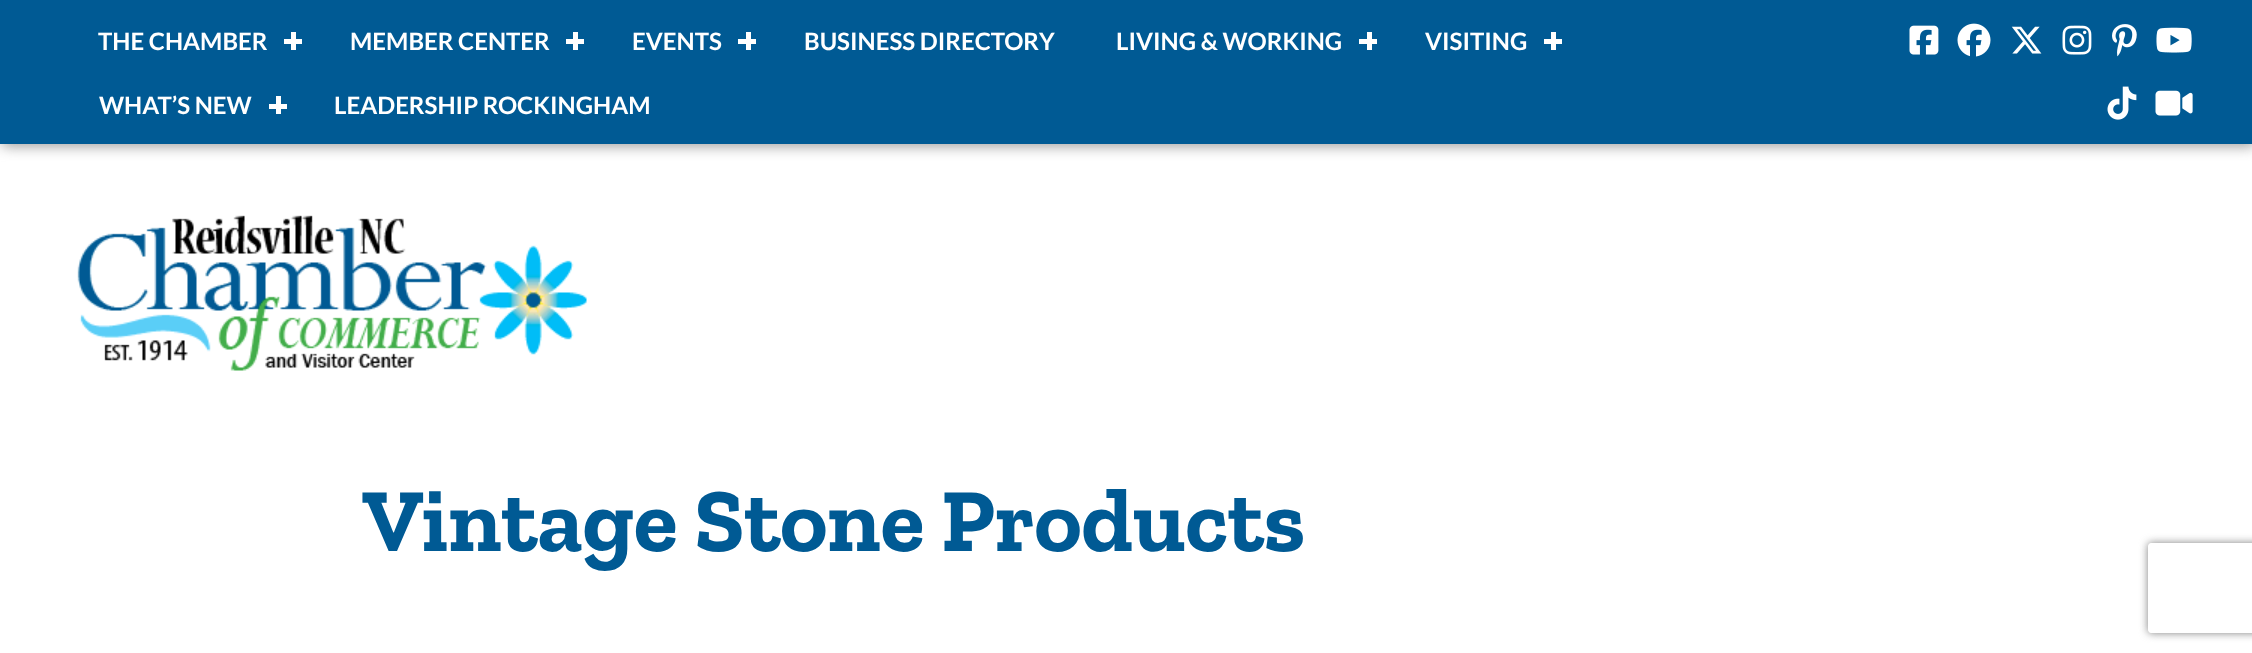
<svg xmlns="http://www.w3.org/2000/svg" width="2252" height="653">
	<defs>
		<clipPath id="clip1"><path d="M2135 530H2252V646H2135ZM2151 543H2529C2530.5 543 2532 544.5 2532 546V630C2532 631.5 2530.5 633 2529 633H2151C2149.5 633 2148 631.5 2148 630V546C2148 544.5 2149.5 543 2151 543Z" clip-rule="evenodd" /></clipPath>
	</defs>
	<rect width="100%" height="100%" fill="#FFFFFF" />
	<rect x="2" y="2" width="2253" height="144" fill="#999999" filter="blur(7px)" />
	<rect x="0" y="0" width="2252" height="144" fill="#005A94" />
	<text x="98" y="50" font-family="Lato" font-size="24" font-weight="700" fill="#FFFFFF">THE CHAMBER</text>
	<rect x="284" y="39" width="18" height="5" fill="#FFFFFF" />
	<rect x="291" y="32" width="5" height="18" fill="#FFFFFF" />
	<text x="350" y="50" font-family="Lato" font-size="24" font-weight="700" fill="#FFFFFF">MEMBER CENTER</text>
	<rect x="566" y="39" width="18" height="5" fill="#FFFFFF" />
	<rect x="573" y="32" width="5" height="18" fill="#FFFFFF" />
	<text x="632" y="50" font-family="Lato" font-size="24" font-weight="700" fill="#FFFFFF">EVENTS</text>
	<rect x="738" y="39" width="18" height="5" fill="#FFFFFF" />
	<rect x="746" y="32" width="5" height="18" fill="#FFFFFF" />
	<g font-family="Lato" font-size="24" font-weight="700" fill="#FFFFFF">
		<text x="804" y="50">BUSINESS DIRECTORY</text>
		<text x="1116" y="50">LIVING &amp; WORKING</text>
	</g>
	<rect x="1359" y="39" width="18" height="5" fill="#FFFFFF" />
	<rect x="1367" y="32" width="5" height="18" fill="#FFFFFF" />
	<text x="1425" y="50" font-family="Lato" font-size="24" font-weight="700" fill="#FFFFFF">VISITING</text>
	<rect x="1544" y="39" width="18" height="5" fill="#FFFFFF" />
	<rect x="1551" y="32" width="5" height="18" fill="#FFFFFF" />
	<text x="99" y="114" font-family="Lato" font-size="24" font-weight="700" fill="#FFFFFF">WHAT’S NEW</text>
	<rect x="269" y="104" width="18" height="5" fill="#FFFFFF" />
	<rect x="276" y="96" width="5" height="18" fill="#FFFFFF" />
	<text x="334" y="114" font-family="Lato" font-size="24" font-weight="700" fill="#FFFFFF">LEADERSHIP ROCKINGHAM</text>
	<image x="1909" y="25" width="30" height="30" href="assets/img1.png" />
	<image x="1957" y="23" width="34" height="34" href="assets/img2.png" />
	<image x="2011" y="26" width="31" height="28" href="assets/img3.png" />
	<image x="2062" y="25" width="30" height="30" href="assets/img4.png" />
	<image x="2112" y="24" width="25" height="33" href="assets/img5.png" />
	<image x="2156" y="27" width="36" height="26" href="assets/img6.png" />
	<image x="2107" y="86" width="30" height="34" href="assets/img7.png" />
	<image x="2155" y="90" width="38" height="26" href="assets/img8.png" />
	<image x="77" y="215" width="510" height="156" href="assets/img9.png" />
	<text x="362" y="551" font-family="Zilla Slab" font-size="90" font-weight="700" fill="#005A94">Vintage Stone Products</text>
	<g clip-path="url(#clip1)">
		<rect x="2148" y="543" width="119" height="90" rx="3" fill="#808080" filter="blur(4px)" />
	</g>
</svg>
